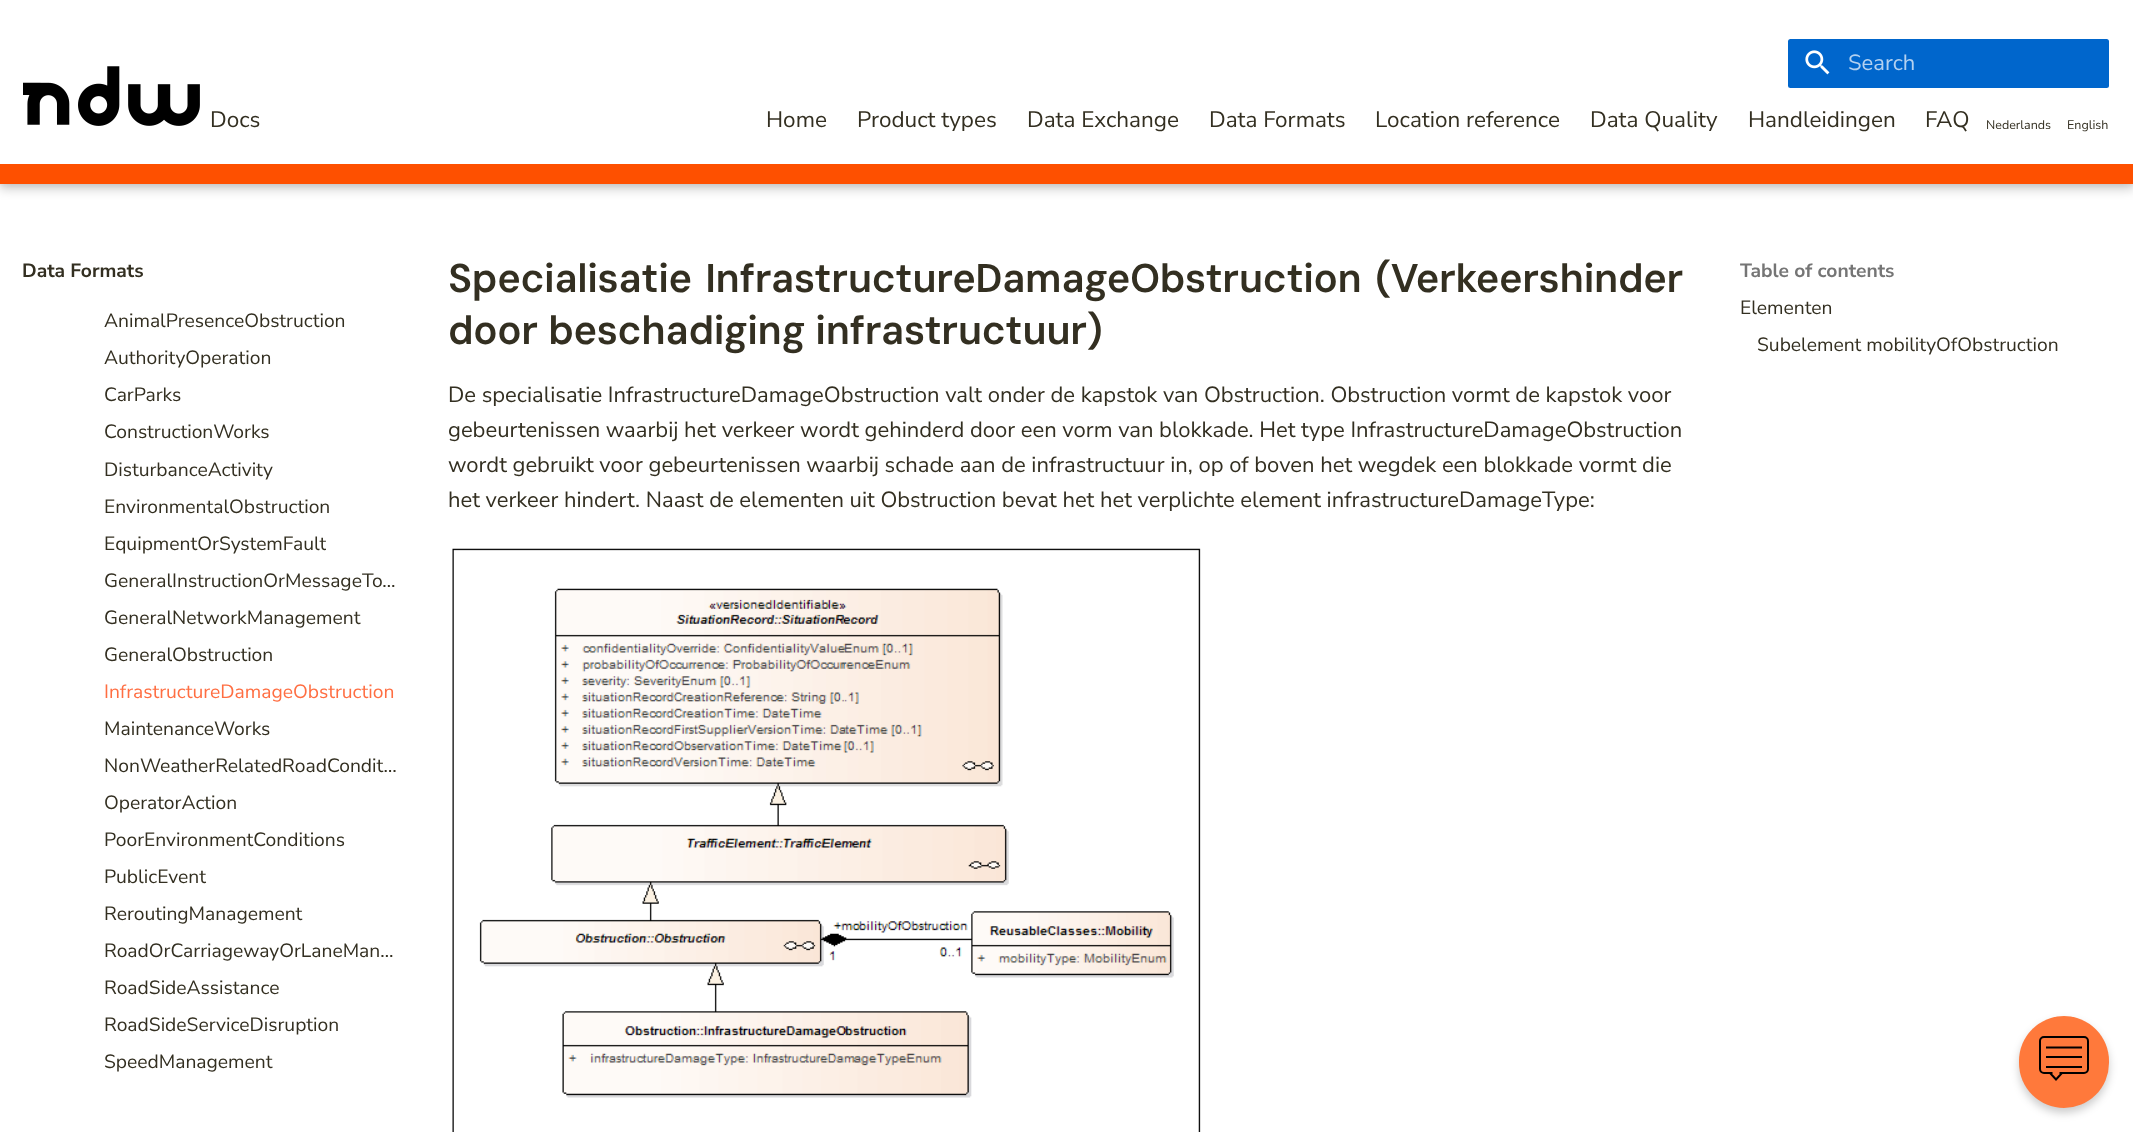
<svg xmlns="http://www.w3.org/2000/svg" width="2133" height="1132">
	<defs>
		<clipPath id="clip1"><rect x="105" y="531" width="221" height="25" /></clipPath>
		<clipPath id="clip2"><rect x="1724" y="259" width="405" height="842" /></clipPath>
		<clipPath id="clip3"><path d="M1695 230H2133V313H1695ZM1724 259H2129V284H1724Z" clip-rule="evenodd" /></clipPath>
	</defs>
	<rect width="100%" height="100%" fill="#FFFFFF" />
	<rect x="0" y="5" width="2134" height="184" fill="#000000" fill-opacity="0.2" filter="blur(5.5px)" />
	<rect x="0" y="0" width="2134" height="184" fill="#000000" fill-opacity="0.1" filter="blur(3px)" />
	<rect x="0" y="0" width="2133" height="164" fill="#FFFFFF" />
	<image x="23" y="66" width="177" height="60" href="assets/img1.png" />
	<text x="210" y="127" font-family="Nunito Sans" font-size="22.5" fill="#332F21">Docs</text>
	<rect x="1788" y="39" width="321" height="49" rx="2.5" fill="#0066CC" />
	<image x="1805" y="50" width="25" height="25" href="assets/img2.png" />
	<text x="1848" y="70" font-family="Nunito Sans" font-size="22" fill="#B3D1F0">Search</text>
	<g font-family="Nunito Sans" font-size="22.5" fill="#332F21">
		<text x="766" y="127">Home</text>
		<text x="857" y="127">Product types</text>
		<text x="1027" y="127">Data Exchange</text>
		<text x="1209" y="127">Data Formats</text>
		<text x="1375" y="127">Location reference</text>
		<text x="1590" y="127">Data Quality</text>
		<text x="1748" y="127">Handleidingen</text>
		<text x="1925" y="127">FAQ</text>
	</g>
	<g font-family="Nunito Sans" font-size="12.5" fill="#332F21">
		<text x="1986" y="129">Nederlands</text>
		<text x="2067" y="129">English</text>
	</g>
	<rect x="0" y="164" width="2133" height="20" fill="#FE5000" />
	<text x="22" y="277" font-family="Nunito Sans" font-size="19.25" font-weight="700" fill="#332F21">Data Formats</text>
	<g font-family="Nunito Sans" font-size="19.25" fill="#332F21">
		<text x="104" y="327">AnimalPresenceObstruction</text>
		<text x="104" y="364">AuthorityOperation</text>
		<text x="104" y="401">CarParks</text>
		<text x="104" y="438">ConstructionWorks</text>
		<text x="104" y="476">DisturbanceActivity</text>
		<text x="104" y="513">EnvironmentalObstruction</text>
	</g>
	<g clip-path="url(#clip1)">
		<text x="104" y="550" font-family="Nunito Sans" font-size="19.25" fill="#332F21">EquipmentOrSystemFault</text>
	</g>
	<g font-family="Nunito Sans" font-size="19.25" fill="#332F21">
		<text x="104" y="587">GeneralInstructionOrMessageTo…</text>
		<text x="104" y="624">GeneralNetworkManagement</text>
		<text x="104" y="661">GeneralObstruction</text>
	</g>
	<text x="104" y="698" font-family="Nunito Sans" font-size="19.25" fill="#FF6E42">InfrastructureDamageObstruction</text>
	<g font-family="Nunito Sans" font-size="19.25" fill="#332F21">
		<text x="104" y="735">MaintenanceWorks</text>
		<text x="104" y="772">NonWeatherRelatedRoadCondit…</text>
		<text x="104" y="809">OperatorAction</text>
		<text x="104" y="846">PoorEnvironmentConditions</text>
		<text x="104" y="883">PublicEvent</text>
		<text x="104" y="920">ReroutingManagement</text>
		<text x="104" y="957">RoadOrCarriagewayOrLaneMan…</text>
		<text x="104" y="994">RoadSideAssistance</text>
		<text x="104" y="1031">RoadSideServiceDisruption</text>
		<text x="104" y="1068">SpeedManagement</text>
	</g>
	<g font-family="DM Sans" font-size="40" font-weight="600" letter-spacing="-0.4" fill="#332F21">
		<text x="448" y="292" word-spacing="4">Specialisatie InfrastructureDamageObstruction (Verkeershinder</text>
		<text x="448" y="344" word-spacing="1">door beschadiging infrastructuur)</text>
	</g>
	<g font-family="Nunito Sans" font-size="22" fill="#332F21">
		<text x="448" y="402">De specialisatie InfrastructureDamageObstruction valt onder de kapstok van Obstruction. Obstruction vormt de kapstok voor</text>
		<text x="448" y="437">gebeurtenissen waarbij het verkeer wordt gehinderd door een vorm van blokkade. Het type InfrastructureDamageObstruction</text>
		<text x="448" y="472">wordt gebruikt voor gebeurtenissen waarbij schade aan de infrastructuur in, op of boven het wegdek een blokkade vormt die</text>
		<text x="448" y="507">het verkeer hindert. Naast de elementen uit Obstruction bevat het het verplichte element infrastructureDamageType:</text>
	</g>
	<image x="452" y="548" width="749" height="584" href="assets/img3.png" />
	<g clip-path="url(#clip2)">
		<g clip-path="url(#clip3)">
			<rect x="1713" y="248" width="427" height="47" fill="#FFFFFF" filter="blur(5.5px)" />
		</g>
	</g>
	<text x="1740" y="277" font-family="Nunito Sans" font-size="19.25" font-weight="700" fill="#757575">Table of contents</text>
	<g font-family="Nunito Sans" font-size="19.25" fill="#332F21">
		<text x="1740" y="314">Elementen</text>
		<text x="1757" y="351">Subelement mobilityOfObstruction</text>
	</g>
	<rect x="2019" y="1021" width="90" height="92" rx="45" fill="#000000" fill-opacity="0.2" filter="blur(4px)" />
	<rect x="2019" y="1016" width="90" height="92" rx="45" fill="#FF793B" />
	<rect x="2040" y="1037" width="48" height="36" rx="4" fill="none" stroke="#000000" stroke-width="2" />
	<path d="M2050 1073H2062L2056 1079.5ZM2046 1047.5H2082" fill="none" stroke="#000000" stroke-width="2" />
	<rect x="2046" y="1056" width="36" height="2" fill="#000000" />
	<rect x="2046" y="1066" width="36" height="2" fill="#000000" />
	<path d="M2052.5 1073H2059.5" fill="none" stroke="#FF793B" stroke-width="2.5" />
</svg>
